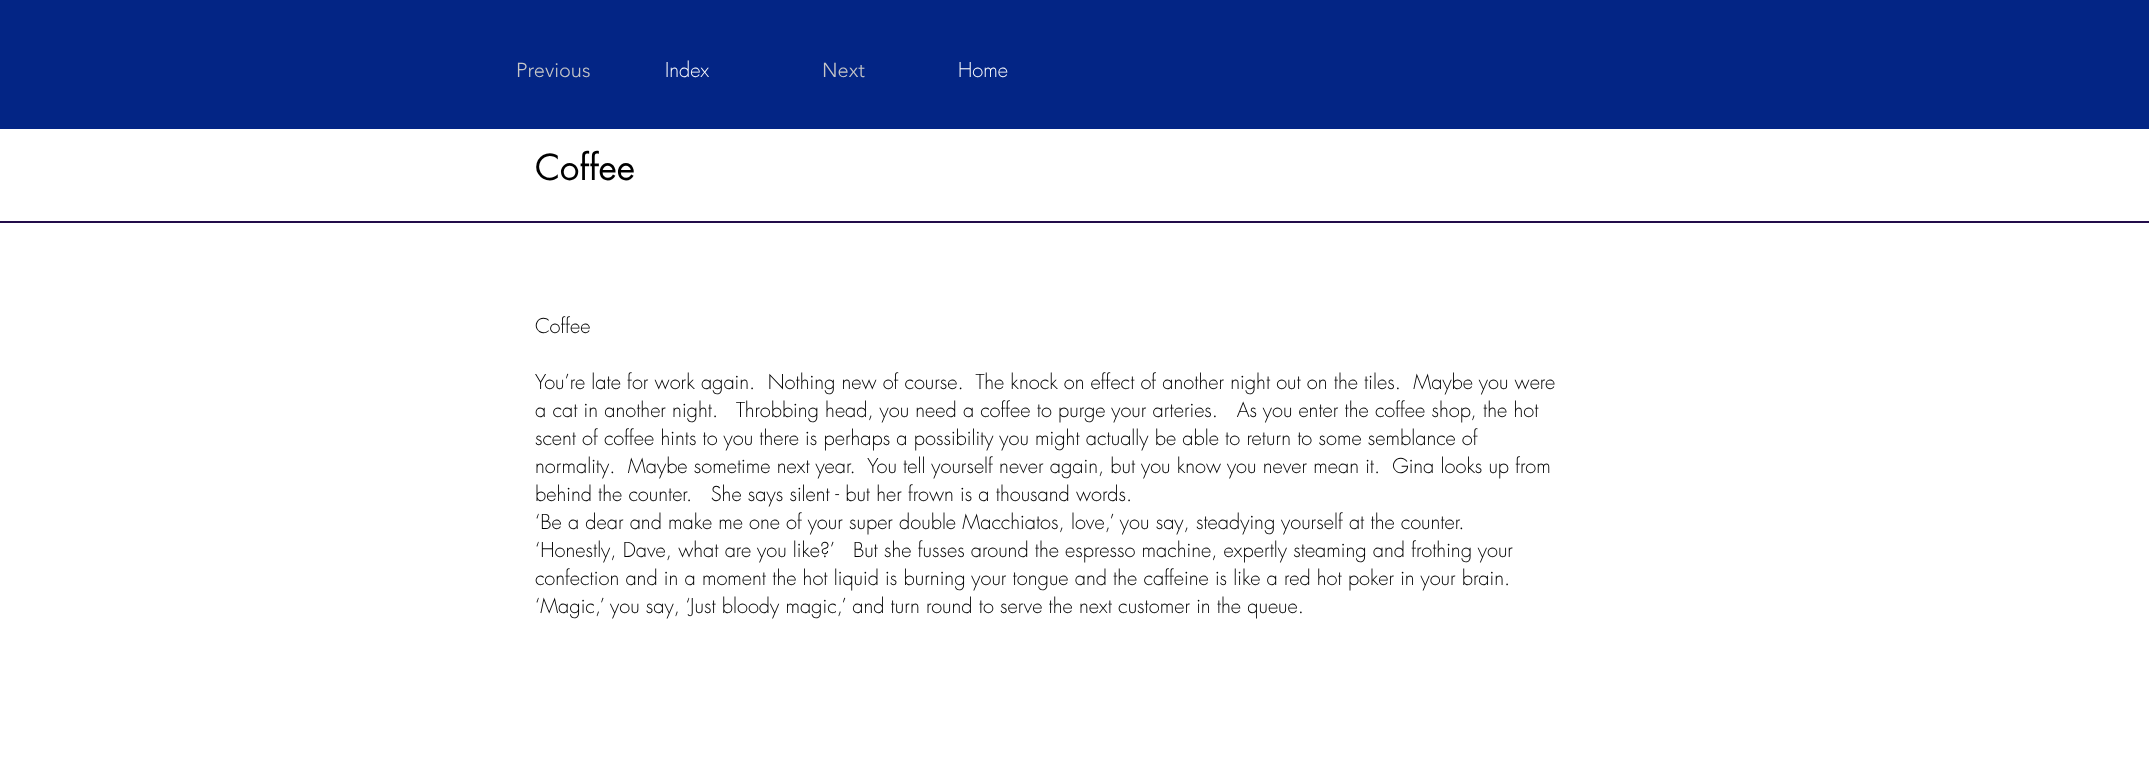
<svg xmlns="http://www.w3.org/2000/svg" width="2149" height="782">
	<rect width="100%" height="100%" fill="#230D4A" />
	<rect x="0" y="0" width="2149" height="129" fill="#032585" />
	<text x="516" y="77" font-family="'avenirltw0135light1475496'" font-size="20" font-weight="300" fill="#C7C7C7">Previous</text>
	<text x="665" y="77" font-family="futura" font-size="20" font-weight="300" fill="#FFFFFF">Index</text>
	<text x="822" y="77" font-family="'avenirltw0135light1475496'" font-size="20" font-weight="300" fill="#C7C7C7">Next</text>
	<text x="958" y="77" font-family="futura" font-size="20" font-weight="300" fill="#FFFFFF">Home</text>
	<rect x="0" y="129" width="2149" height="92" fill="#FFFFFF" />
	<text x="535" y="180" font-family="futura" font-size="35" fill="#000000">Coffee</text>
	<rect x="0" y="223" width="2149" height="559" fill="#FFFFFF" />
	<g font-family="futura" font-size="20" font-weight="300" fill="#000000">
		<text x="535" y="333">Coffee</text>
		<text x="535" y="389" xml:space="preserve">You’re late for work again.  Nothing new of course.  The knock on effect of another night out on the tiles.  Maybe you were</text>
		<text x="535" y="417" xml:space="preserve">a cat in another night.   Throbbing head, you need a coffee to purge your arteries.   As you enter the coffee shop, the hot</text>
		<text x="535" y="445">scent of coffee hints to you there is perhaps a possibility you might actually be able to return to some semblance of</text>
		<text x="535" y="473" xml:space="preserve">normality.  Maybe sometime next year.  You tell yourself never again, but you know you never mean it.  Gina looks up from</text>
		<text x="535" y="501" xml:space="preserve">behind the counter.   She says silent - but her frown is a thousand words.</text>
		<text x="535" y="529">‘Be a dear and make me one of your super double Macchiatos, love,’ you say, steadying yourself at the counter.</text>
		<text x="535" y="557" xml:space="preserve">‘Honestly, Dave, what are you like?’   But she fusses around the espresso machine, expertly steaming and frothing your</text>
		<text x="535" y="585">confection and in a moment the hot liquid is burning your tongue and the caffeine is like a red hot poker in your brain.</text>
		<text x="535" y="613">‘Magic,’ you say, ‘Just bloody magic,’ and turn round to serve the next customer in the queue.</text>
	</g>
</svg>
